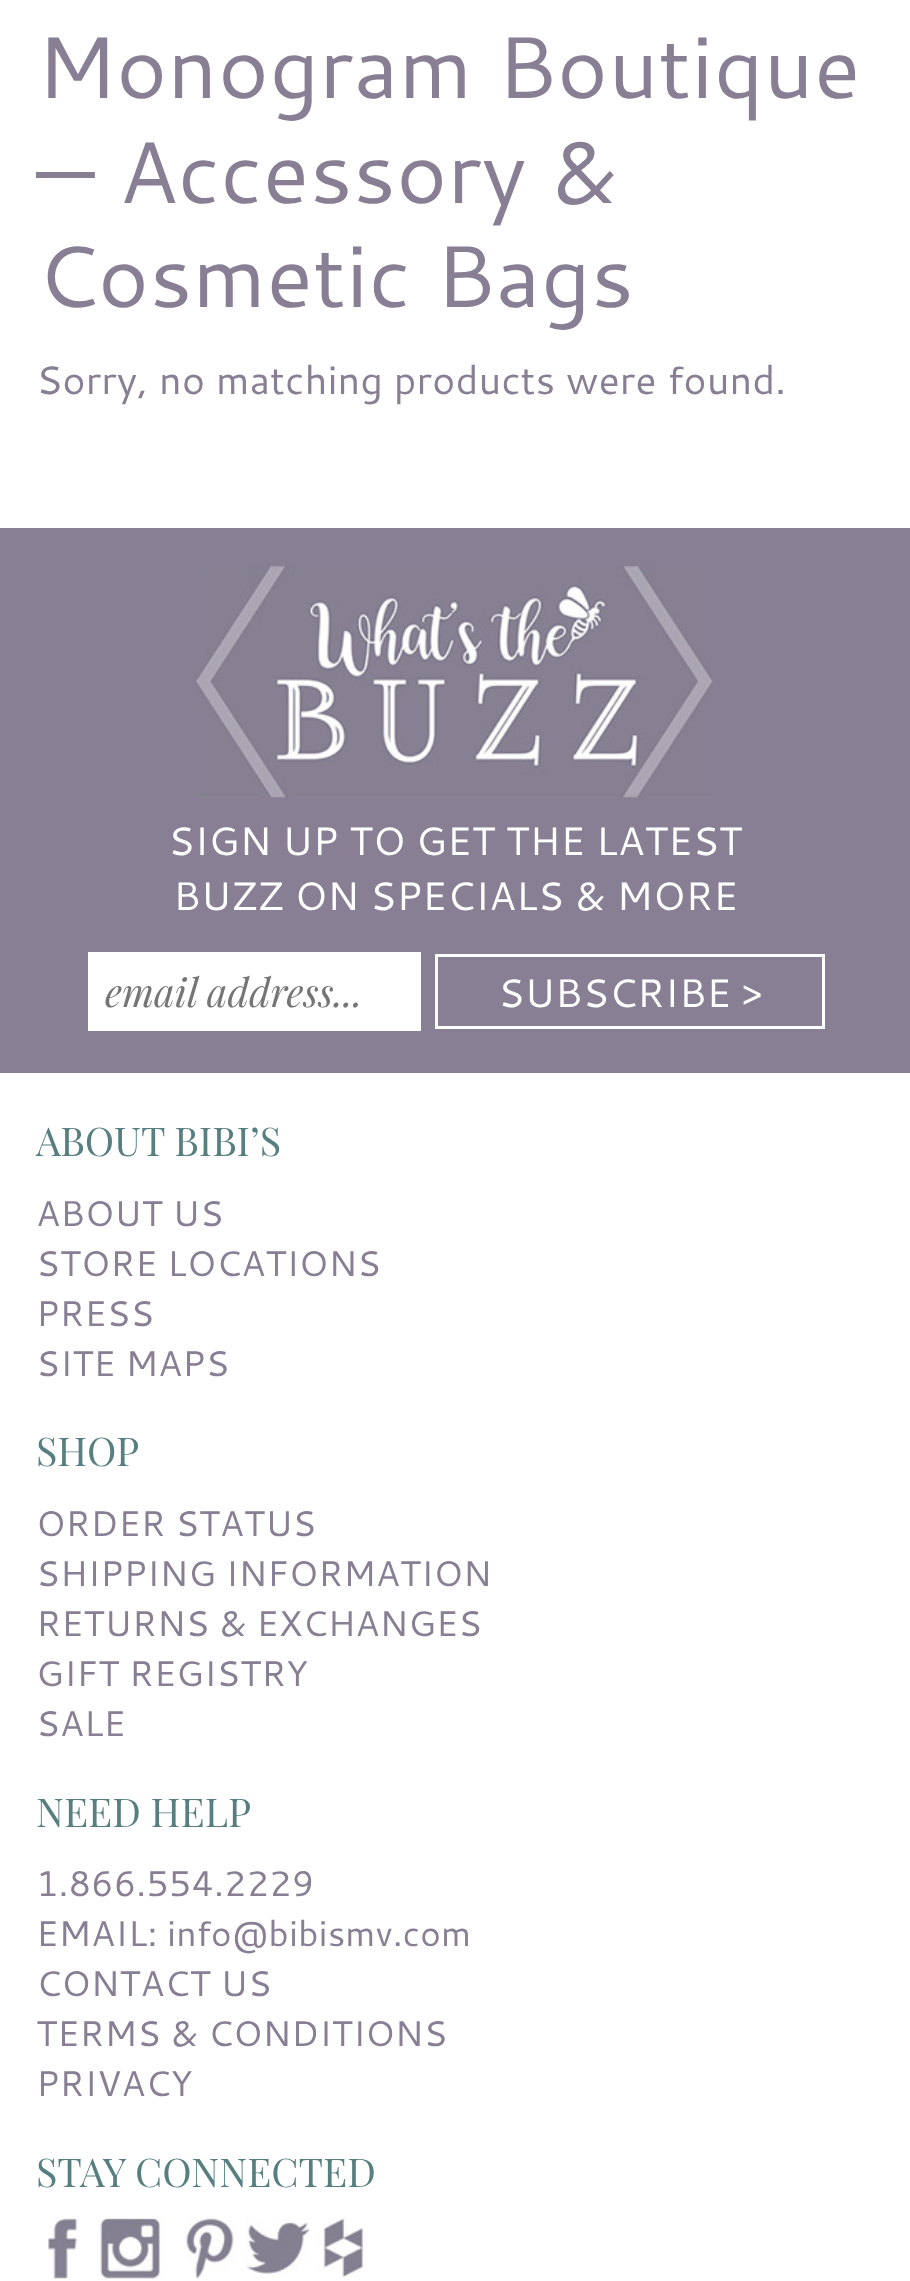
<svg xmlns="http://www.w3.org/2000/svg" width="910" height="2281">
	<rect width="100%" height="100%" fill="#FFFFFF" />
	<g font-family="Cantarell" font-size="87.1" fill="#887F94">
		<text x="36" y="98">Monogram Boutique</text>
		<text x="36" y="203">— Accessory &amp;</text>
		<text x="36" y="307">Cosmetic Bags</text>
	</g>
	<text x="36" y="394" font-family="Cantarell" font-size="39.6" fill="#887F94">Sorry, no matching products were found.</text>
	<rect x="0" y="528" width="910" height="545" fill="#887F94" />
	<image x="195" y="566" width="518" height="232" href="assets/img1.png" />
	<g font-family="Cantarell" font-size="39.6" fill="#FFFFFF">
		<text x="168" y="855">SIGN UP TO GET THE LATEST</text>
		<text x="173" y="910">BUZZ ON SPECIALS &amp; MORE</text>
	</g>
	<rect x="88" y="952" width="333" height="79" fill="#FFFFFF" />
	<text x="105" y="1007" font-family="Playfair Display" font-size="39.6" font-style="italic" fill="#757575">email address...</text>
	<rect x="436.5" y="955.5" width="387" height="72" fill="none" stroke="#FFFFFF" stroke-width="3" />
	<text x="498" y="1007" font-family="Cantarell" font-size="39.6" fill="#FFFFFF">SUBSCRIBE &gt;</text>
	<text x="36" y="1156" font-family="Playfair Display" font-size="39.6" fill="#577F80">ABOUT BIBI’S</text>
	<g font-family="Cantarell" font-size="35.6" fill="#887F94">
		<text x="36" y="1226">ABOUT US</text>
		<text x="36" y="1276">STORE LOCATIONS</text>
		<text x="36" y="1326">PRESS</text>
		<text x="36" y="1376">SITE MAPS</text>
	</g>
	<text x="36" y="1466" font-family="Playfair Display" font-size="39.6" fill="#577F80">SHOP</text>
	<g font-family="Cantarell" font-size="35.6" fill="#887F94">
		<text x="36" y="1536">ORDER STATUS</text>
		<text x="36" y="1586">SHIPPING INFORMATION</text>
		<text x="36" y="1636">RETURNS &amp; EXCHANGES</text>
		<text x="36" y="1686">GIFT REGISTRY</text>
		<text x="36" y="1736">SALE</text>
	</g>
	<text x="36" y="1827" font-family="Playfair Display" font-size="39.6" fill="#577F80">NEED HELP</text>
	<g font-family="Cantarell" font-size="35.6" fill="#887F94">
		<text x="36" y="1896">1.866.554.2229</text>
		<text x="36" y="1946">EMAIL: info@bibismv.com</text>
		<text x="36" y="1996">CONTACT US</text>
		<text x="36" y="2046">TERMS &amp; CONDITIONS</text>
		<text x="36" y="2096">PRIVACY</text>
	</g>
	<text x="36" y="2187" font-family="Playfair Display" font-size="39.6" fill="#577F80">STAY CONNECTED</text>
	<image x="48" y="2218" width="32" height="61" href="assets/img2.png" />
	<image x="100" y="2218" width="65" height="61" href="assets/img3.png" />
	<image x="185" y="2218" width="50" height="61" href="assets/img4.png" />
	<image x="245" y="2217" width="65" height="61" href="assets/img5.png" />
	<image x="318" y="2217" width="45" height="62" href="assets/img6.png" />
</svg>
